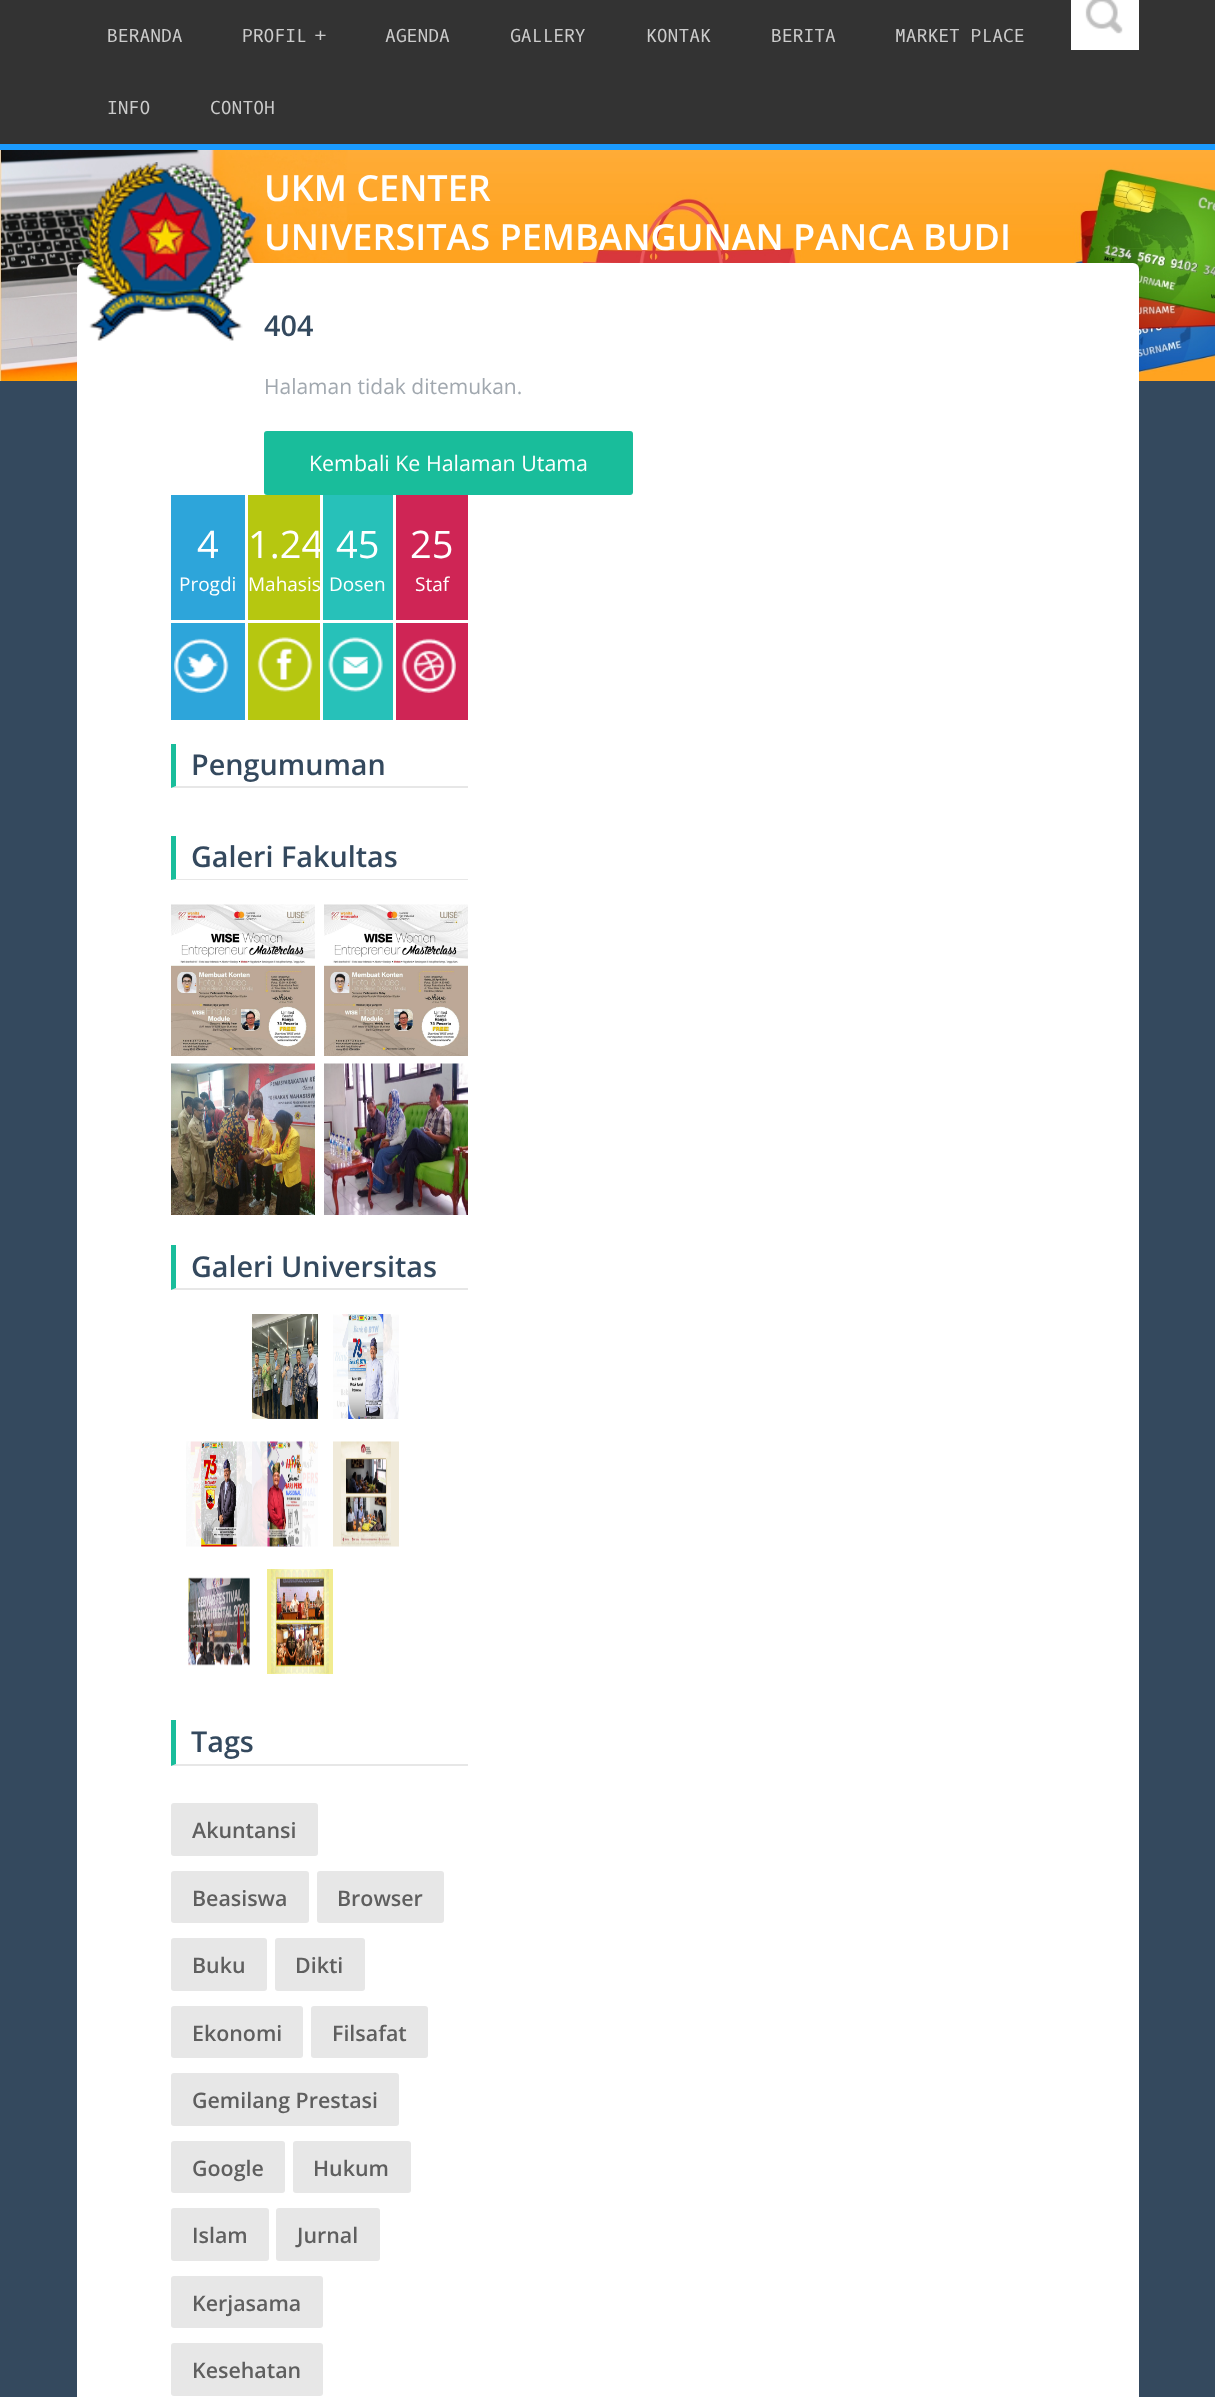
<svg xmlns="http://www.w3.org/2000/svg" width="1215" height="2397">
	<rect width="100%" height="100%" fill="#333333" />
	<rect x="0" y="144" width="1215" height="6" fill="#1B9BFF" />
	<g font-family="Oxygen Mono" font-size="18" fill="#CBCBCB">
		<text x="107" y="42">BERANDA</text>
		<text x="242" y="42">PROFIL</text>
		<text x="314" y="42">+</text>
		<text x="385" y="42">AGENDA</text>
		<text x="510" y="42">GALLERY</text>
		<text x="646" y="42">KONTAK</text>
		<text x="771" y="42">BERITA</text>
		<text x="895" y="42">MARKET PLACE</text>
		<text x="107" y="114">INFO</text>
		<text x="210" y="114">CONTOH</text>
	</g>
	<rect x="1071" y="0" width="68" height="50" fill="#FFFFFF" />
	<image x="1085" y="0" width="38" height="34" href="assets/img1.png" />
	<image x="0" y="150" width="1215" height="231" href="assets/img2.png" />
	<rect x="0" y="381" width="1215" height="2016" fill="#34495E" />
	<rect x="77" y="263" width="1062" height="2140" rx="6" fill="#FFFFFF" />
	<image x="78" y="162" width="176" height="179" href="assets/img3.png" />
	<g font-family="Open Sans" font-size="36" font-weight="600" fill="#FFFFFF">
		<text x="264" y="201">UKM CENTER</text>
		<text x="264" y="250">UNIVERSITAS PEMBANGUNAN PANCA BUDI</text>
	</g>
	<text x="264" y="336" font-family="Open Sans" font-size="28.75" font-weight="600" fill="#34495E">404</text>
	<text x="264" y="394" font-family="Open Sans" font-size="21" fill="#A1A8AF">Halaman tidak ditemukan.</text>
	<rect x="264" y="431" width="369" height="64" rx="3" fill="#19BD9B" />
	<text x="309" y="471" font-family="Open Sans" font-size="21.4" fill="#FFFFFF">Kembali Ke Halaman Utama</text>
	<rect x="171" y="495" width="74" height="225" fill="#2DA5DA" />
	<rect x="171" y="620" width="74" height="3" fill="#FFFFFF" />
	<text x="197" y="558" font-family="Open Sans" font-size="38" fill="#FFFFFF">4</text>
	<text x="179" y="591" font-family="Open Sans" font-size="19" fill="#FFFFFF">Progdi</text>
	<image x="174" y="638" width="55" height="55" href="assets/img4.png" />
	<rect x="248" y="495" width="72" height="225" fill="#B6C710" />
	<rect x="248" y="620" width="72" height="3" fill="#FFFFFF" />
	<text x="248" y="558" font-family="Open Sans" font-size="38" fill="#FFFFFF">1.24</text>
	<text x="248" y="591" font-family="Open Sans" font-size="19" fill="#FFFFFF">Mahasis</text>
	<image x="257" y="637" width="56" height="55" href="assets/img5.png" />
	<rect x="323" y="495" width="70" height="225" fill="#27C1B9" />
	<rect x="323" y="620" width="70" height="3" fill="#FFFFFF" />
	<text x="336" y="558" font-family="Open Sans" font-size="38" fill="#FFFFFF">45</text>
	<text x="329" y="591" font-family="Open Sans" font-size="19" fill="#FFFFFF">Dosen</text>
	<image x="328" y="637" width="55" height="55" href="assets/img6.png" />
	<rect x="396" y="495" width="72" height="225" fill="#CF2555" />
	<rect x="396" y="620" width="72" height="3" fill="#FFFFFF" />
	<text x="410" y="558" font-family="Open Sans" font-size="38" fill="#FFFFFF">25</text>
	<text x="415" y="591" font-family="Open Sans" font-size="19" fill="#FFFFFF">Staf</text>
	<image x="401" y="638" width="55" height="55" href="assets/img7.png" />
	<path d="M468 788H171L176 786H468Z" fill="#E7E7E7" />
	<path d="M171 788V744H176V786Z" fill="#19BD9B" />
	<text x="191" y="775" font-family="Open Sans" font-size="28.75" font-weight="600" fill="#34495E">Pengumuman</text>
	<path d="M468 880H171L176 879H468Z" fill="#E7E7E7" />
	<path d="M171 880V836H176V879Z" fill="#19BD9B" />
	<text x="191" y="867" font-family="Open Sans" font-size="28.75" font-weight="600" fill="#34495E">Galeri Fakultas</text>
	<image x="171" y="904" width="144" height="152" href="assets/img8.png" />
	<image x="324" y="904" width="144" height="152" href="assets/img8.png" />
	<image x="171" y="1063" width="144" height="152" href="assets/img9.png" />
	<image x="324" y="1063" width="144" height="152" href="assets/img10.png" />
	<path d="M468 1290H171L176 1288H468Z" fill="#E7E7E7" />
	<path d="M171 1290V1245H176V1288Z" fill="#19BD9B" />
	<text x="191" y="1277" font-family="Open Sans" font-size="28.75" font-weight="600" fill="#34495E">Galeri Universitas</text>
	<image x="252" y="1314" width="66" height="105" href="assets/img11.png" />
	<image x="333" y="1314" width="66" height="105" href="assets/img12.png" />
	<image x="186" y="1441" width="66" height="106" href="assets/img13.png" />
	<image x="252" y="1441" width="66" height="106" href="assets/img14.png" />
	<image x="333" y="1441" width="66" height="106" href="assets/img15.png" />
	<image x="188" y="1577" width="62" height="89" href="assets/img16.png" />
	<image x="267" y="1569" width="66" height="105" href="assets/img17.png" />
	<path d="M468 1766H171L176 1764H468Z" fill="#E7E7E7" />
	<path d="M171 1766V1720H176V1764Z" fill="#19BD9B" />
	<text x="191" y="1752" font-family="Open Sans" font-size="28.75" font-weight="600" fill="#34495E">Tags</text>
	<rect x="171" y="1803" width="147" height="53" rx="3" fill="#E7E7E7" />
	<text x="192" y="1838" font-family="Open Sans" font-size="21.4" font-weight="600" fill="#5F5F5F">Akuntansi</text>
	<rect x="171" y="1871" width="138" height="52" rx="3" fill="#E7E7E7" />
	<text x="192" y="1906" font-family="Open Sans" font-size="21.4" font-weight="600" fill="#5F5F5F">Beasiswa</text>
	<rect x="317" y="1871" width="127" height="52" rx="3" fill="#E7E7E7" />
	<text x="337" y="1906" font-family="Open Sans" font-size="21.4" font-weight="600" fill="#5F5F5F">Browser</text>
	<rect x="171" y="1938" width="96" height="53" rx="3" fill="#E7E7E7" />
	<text x="192" y="1973" font-family="Open Sans" font-size="21.4" font-weight="600" fill="#5F5F5F">Buku</text>
	<rect x="275" y="1938" width="90" height="53" rx="3" fill="#E7E7E7" />
	<text x="295" y="1973" font-family="Open Sans" font-size="21.4" font-weight="600" fill="#5F5F5F">Dikti</text>
	<rect x="171" y="2006" width="132" height="52" rx="3" fill="#E7E7E7" />
	<text x="192" y="2041" font-family="Open Sans" font-size="21.4" font-weight="600" fill="#5F5F5F">Ekonomi</text>
	<rect x="311" y="2006" width="117" height="52" rx="3" fill="#E7E7E7" />
	<text x="332" y="2041" font-family="Open Sans" font-size="21.4" font-weight="600" fill="#5F5F5F">Filsafat</text>
	<rect x="171" y="2073" width="228" height="53" rx="3" fill="#E7E7E7" />
	<text x="192" y="2108" font-family="Open Sans" font-size="21.4" font-weight="600" fill="#5F5F5F">Gemilang Prestasi</text>
	<rect x="171" y="2141" width="114" height="52" rx="3" fill="#E7E7E7" />
	<text x="192" y="2176" font-family="Open Sans" font-size="21.4" font-weight="600" fill="#5F5F5F">Google</text>
	<rect x="293" y="2141" width="118" height="52" rx="3" fill="#E7E7E7" />
	<text x="313" y="2176" font-family="Open Sans" font-size="21.4" font-weight="600" fill="#5F5F5F">Hukum</text>
	<rect x="171" y="2208" width="98" height="53" rx="3" fill="#E7E7E7" />
	<text x="192" y="2243" font-family="Open Sans" font-size="21.4" font-weight="600" fill="#5F5F5F">Islam</text>
	<rect x="276" y="2208" width="104" height="53" rx="3" fill="#E7E7E7" />
	<text x="297" y="2243" font-family="Open Sans" font-size="21.4" font-weight="600" fill="#5F5F5F">Jurnal</text>
	<rect x="171" y="2276" width="152" height="52" rx="3" fill="#E7E7E7" />
	<text x="192" y="2311" font-family="Open Sans" font-size="21.4" font-weight="600" fill="#5F5F5F">Kerjasama</text>
	<rect x="171" y="2343" width="152" height="53" rx="3" fill="#E7E7E7" />
	<text x="192" y="2378" font-family="Open Sans" font-size="21.4" font-weight="600" fill="#5F5F5F">Kesehatan</text>
</svg>
